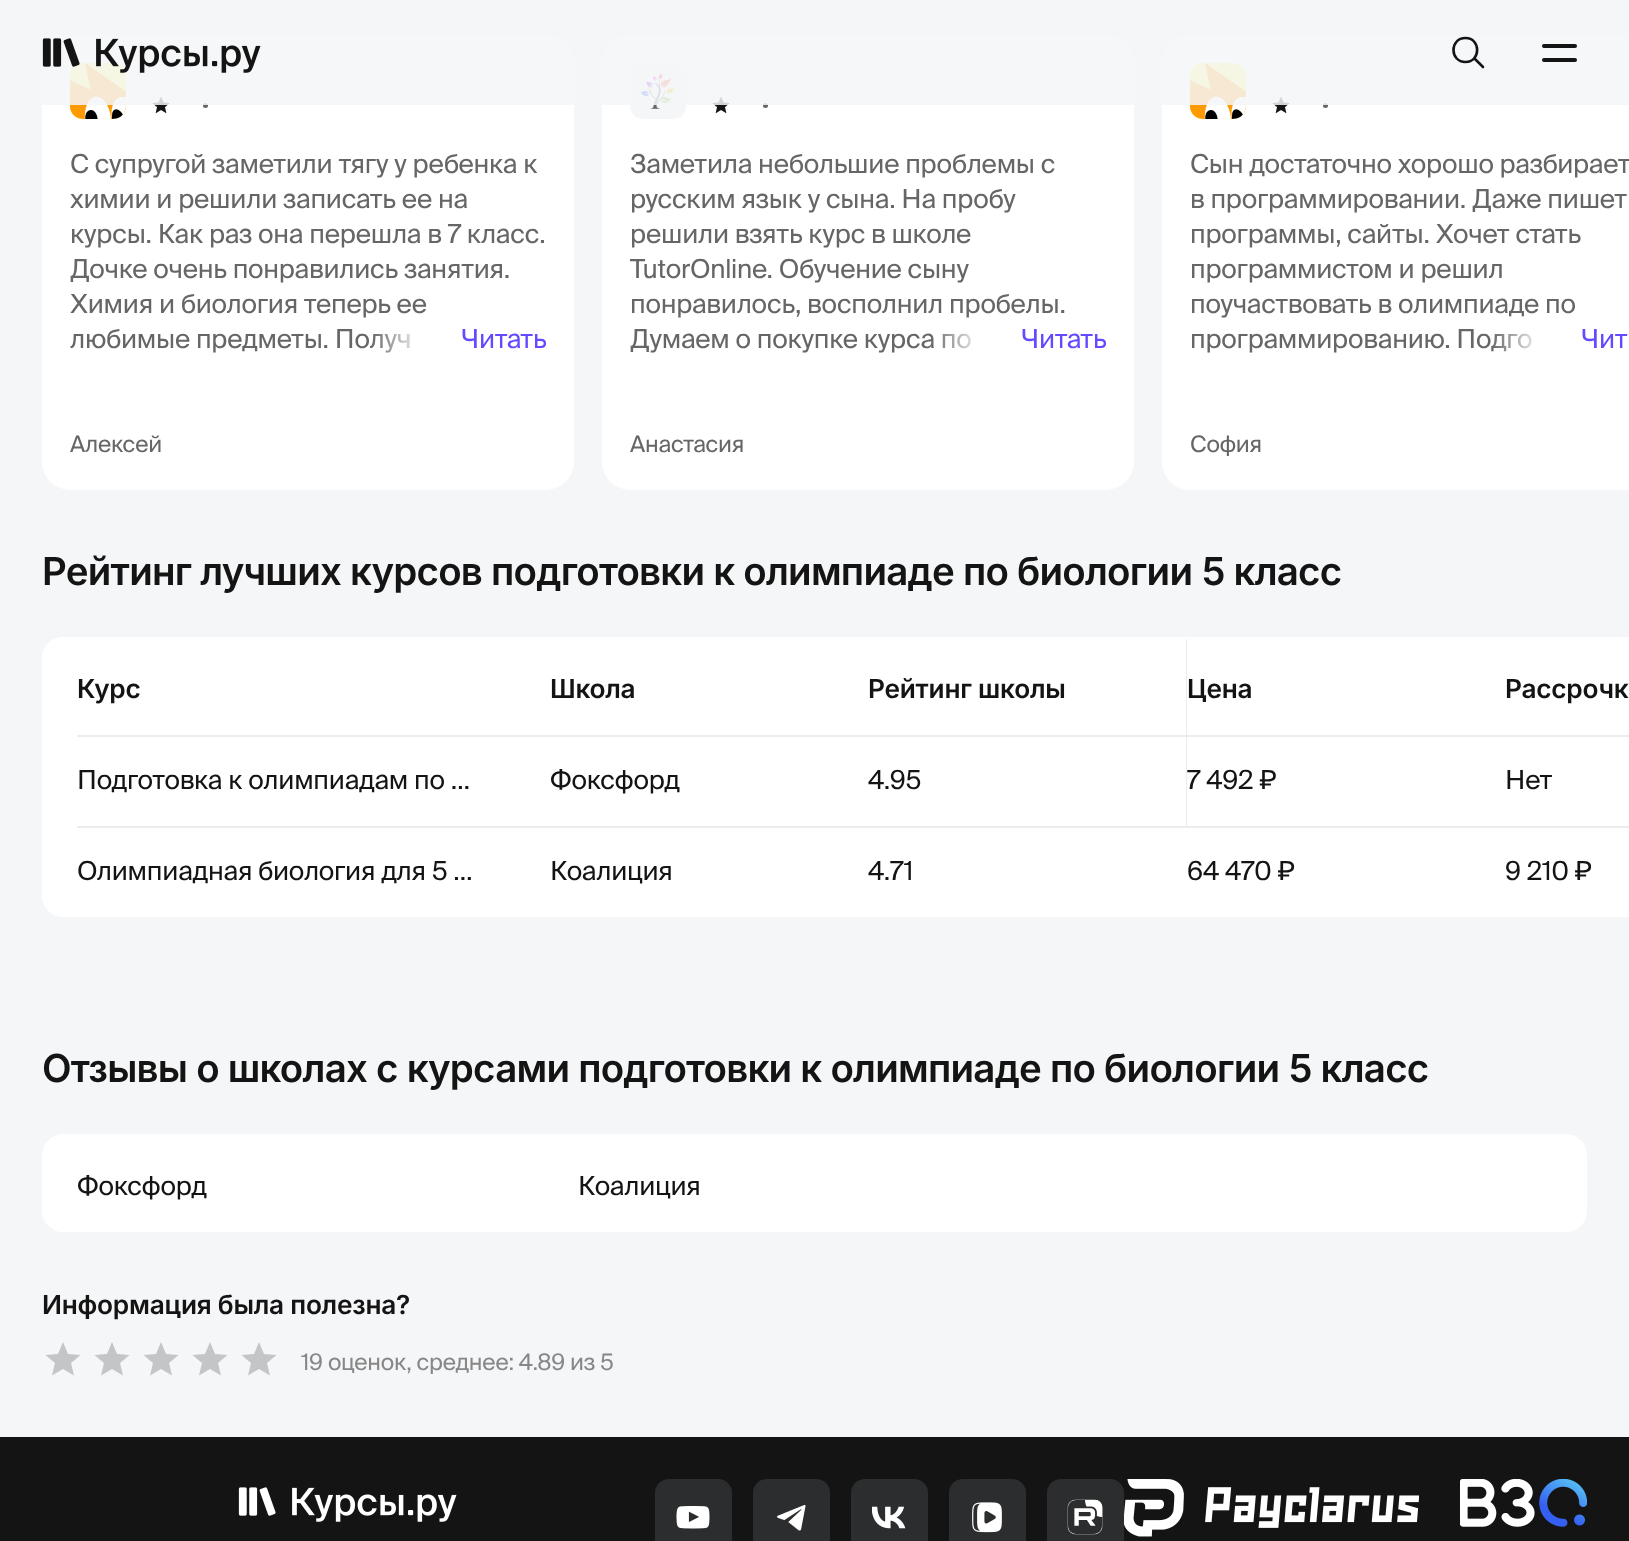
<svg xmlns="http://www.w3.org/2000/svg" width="1629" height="1541">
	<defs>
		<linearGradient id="g1" gradientUnits="userSpaceOnUse" x1="371" y1="338" x2="546" y2="338"><stop offset="0" stop-color="#FFFFFF" stop-opacity="0" /><stop offset="0.3" stop-color="#FFFFFF" /></linearGradient>
		<linearGradient id="g2" gradientUnits="userSpaceOnUse" x1="931" y1="338" x2="1106" y2="338"><stop offset="0" stop-color="#FFFFFF" stop-opacity="0" /><stop offset="0.3" stop-color="#FFFFFF" /></linearGradient>
		<linearGradient id="g3" gradientUnits="userSpaceOnUse" x1="1491" y1="338" x2="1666" y2="338"><stop offset="0" stop-color="#FFFFFF" stop-opacity="0" /><stop offset="0.3" stop-color="#FFFFFF" /></linearGradient>
	</defs>
	<rect width="100%" height="100%" fill="#F5F6F7" />
	<rect x="42" y="35" width="532" height="455" rx="28" fill="#FFFFFF" />
	<image x="70" y="63" width="56" height="56" href="assets/img2.png" />
	<image x="152" y="97" width="18" height="17" href="assets/img3.png" />
	<circle cx="205.5" cy="105.5" r="2.5" fill="#666666" />
	<rect x="602" y="35" width="532" height="455" rx="28" fill="#FFFFFF" />
	<image x="630" y="63" width="56" height="56" href="assets/img4.png" />
	<image x="712" y="97" width="18" height="17" href="assets/img3.png" />
	<circle cx="765.5" cy="105.5" r="2.5" fill="#666666" />
	<path d="M1190 35H1629V490H1190C1174.5 490 1162 477.5 1162 462V63C1162 47.5 1174.5 35 1190 35Z" fill="#FFFFFF" />
	<image x="1190" y="63" width="56" height="56" href="assets/img2.png" />
	<image x="1272" y="97" width="18" height="17" href="assets/img3.png" />
	<circle cx="1325.5" cy="105.5" r="2.5" fill="#666666" />
	<rect x="42" y="35" width="1587" height="70" fill="#F5F6F7" fill-opacity="0.85" />
	<image x="42" y="38" width="219" height="35" href="assets/img1.png" />
	<path d="M1474.5 58.5L1483 67M1465.5 62C1481 62 1481 38 1465.5 38C1449.5 38 1449.5 62 1465.5 62Z" fill="none" stroke="#141414" stroke-width="2.6" stroke-linecap="round" stroke-linejoin="round" />
	<rect x="1542" y="44" width="35" height="4" rx="2" fill="#141414" />
	<rect x="1542" y="58" width="35" height="4" rx="2" fill="#141414" />
	<g font-family="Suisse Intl" font-size="26.25" letter-spacing="-0.25" fill="#666666">
		<text x="70" y="173">С супругой заметили тягу у ребенка к</text>
		<text x="70" y="208">химии и решили записать ее на</text>
		<text x="70" y="243">курсы. Как раз она перешла в 7 класс.</text>
		<text x="70" y="278">Дочке очень понравились занятия.</text>
		<text x="70" y="313">Химия и биология теперь ее</text>
		<text x="70" y="348">любимые предметы. Получ</text>
	</g>
	<text x="461" y="348" font-family="Suisse Intl" font-size="26.25" letter-spacing="-0.25" fill="#6349FF">Читать</text>
	<rect x="372" y="333" width="37" height="20" fill="url(#g1)" />
	<text x="70" y="452" font-family="Suisse Intl" font-size="22.75" letter-spacing="-0.25" fill="#666666">Алексей</text>
	<g font-family="Suisse Intl" font-size="26.25" letter-spacing="-0.25" fill="#666666">
		<text x="630" y="173">Заметила небольшие проблемы с</text>
		<text x="630" y="208">русским язык у сына. На пробу</text>
		<text x="630" y="243">решили взять курс в школе</text>
		<text x="630" y="278">TutorOnline. Обучение сыну</text>
		<text x="630" y="313">понравилось, восполнил пробелы.</text>
		<text x="630" y="348">Думаем о покупке курса по</text>
	</g>
	<text x="1021" y="348" font-family="Suisse Intl" font-size="26.25" letter-spacing="-0.25" fill="#6349FF">Читать</text>
	<rect x="932" y="333" width="39" height="16" fill="url(#g2)" />
	<text x="630" y="452" font-family="Suisse Intl" font-size="22.75" letter-spacing="-0.25" fill="#666666">Анастасия</text>
	<g font-family="Suisse Intl" font-size="26.25" letter-spacing="-0.25" fill="#666666">
		<text x="1190" y="173">Сын достаточно хорошо разбирает</text>
		<text x="1190" y="208">в программировании. Даже пишет</text>
		<text x="1190" y="243">программы, сайты. Хочет стать</text>
		<text x="1190" y="278">программистом и решил</text>
		<text x="1190" y="313">поучаствовать в олимпиаде по</text>
		<text x="1190" y="348">программированию. Подго</text>
	</g>
	<text x="1581" y="348" font-family="Suisse Intl" font-size="26.25" letter-spacing="-0.25" fill="#6349FF">Чит</text>
	<rect x="1492" y="333" width="40" height="19" fill="url(#g3)" />
	<text x="1190" y="452" font-family="Suisse Intl" font-size="22.75" letter-spacing="-0.25" fill="#666666">София</text>
	<text x="42" y="585" font-family="Inter" font-size="38.5" font-weight="600" letter-spacing="-0.77" fill="#141414">Рейтинг лучших курсов подготовки к олимпиаде по биологии 5 класс</text>
	<path d="M63 637H1629V917H63C51.5 917 42 907.5 42 896V658C42 646.5 51.5 637 63 637Z" fill="#FFFFFF" />
	<path d="M77 735V737H550V639V735Z" fill="#EAECEE" />
	<text x="77" y="698" font-family="Inter" font-size="26.25" font-weight="600" letter-spacing="-0.25" fill="#141414">Курс</text>
	<rect x="550" y="735" width="318" height="2" fill="#EAECEE" />
	<text x="550" y="698" font-family="Inter" font-size="26.25" font-weight="600" letter-spacing="-0.25" fill="#141414">Школа</text>
	<path d="M868 735V737H1187V639H1186V735Z" fill="#EAECEE" />
	<text x="868" y="698" font-family="Inter" font-size="26.25" font-weight="600" letter-spacing="-0.25" fill="#141414">Рейтинг школы</text>
	<rect x="1187" y="735" width="318" height="2" fill="#EAECEE" />
	<text x="1187" y="698" font-family="Inter" font-size="26.25" font-weight="600" letter-spacing="-0.25" fill="#141414">Цена</text>
	<path d="M1505 735V737H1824V639V735Z" fill="#EAECEE" />
	<text x="1505" y="698" font-family="Inter" font-size="26.25" font-weight="600" letter-spacing="-0.25" fill="#141414">Рассрочк</text>
	<path d="M77 826V828H550V737V826Z" fill="#EAECEE" />
	<text x="77" y="789" font-family="Suisse Intl" font-size="26.25" letter-spacing="-0.25" fill="#141414">Подготовка к олимпиадам по …</text>
	<rect x="550" y="826" width="318" height="2" fill="#EAECEE" />
	<text x="550" y="789" font-family="Suisse Intl" font-size="26.25" letter-spacing="-0.25" fill="#141414">Фоксфорд</text>
	<path d="M868 826V828H1187V737H1186V826Z" fill="#EAECEE" />
	<text x="868" y="789" font-family="Suisse Intl" font-size="26.25" letter-spacing="-0.25" fill="#141414">4.95</text>
	<rect x="1187" y="826" width="318" height="2" fill="#EAECEE" />
	<text x="1187" y="789" font-family="Suisse Intl" font-size="26.25" letter-spacing="-0.25" fill="#141414">7 492 ₽</text>
	<path d="M1505 826V828H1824V737V826Z" fill="#EAECEE" />
	<g font-family="Suisse Intl" font-size="26.25" letter-spacing="-0.25" fill="#141414">
		<text x="1505" y="789">Нет</text>
		<text x="77" y="880">Олимпиадная биология для 5 …</text>
		<text x="550" y="880">Коалиция</text>
		<text x="868" y="880">4.71</text>
		<text x="1187" y="880">64 470 ₽</text>
		<text x="1505" y="880">9 210 ₽</text>
	</g>
	<text x="42" y="1082" font-family="Inter" font-size="38.5" font-weight="600" letter-spacing="-0.77" fill="#141414">Отзывы о школах с курсами подготовки к олимпиаде по биологии 5 класс</text>
	<rect x="42" y="1134" width="1545" height="98" rx="21" fill="#FFFFFF" />
	<g font-family="Suisse Intl" font-size="26.25" letter-spacing="-0.25" fill="#141414">
		<text x="77" y="1195">Фоксфорд</text>
		<text x="578" y="1195">Коалиция</text>
	</g>
	<text x="42" y="1314" font-family="Inter" font-size="26.25" font-weight="600" letter-spacing="-0.25" fill="#141414">Информация была полезна?</text>
	<path d="M52 1375.5L55 1363L45.5 1355L58 1354L63 1342L68 1354L80.5 1355L71 1363L74 1375.5L63 1369Z" fill="#C4C5C6" />
	<path d="M101 1375.5L104 1363L94.5 1355L107 1354L112 1342L117 1354L129.5 1355L120 1363L123 1375.5L112 1369Z" fill="#C4C5C6" />
	<path d="M150 1375.5L153 1363L143.5 1355L156 1354L161 1342L166 1354L178.5 1355L169 1363L172 1375.5L161 1369Z" fill="#C4C5C6" />
	<path d="M199 1375.5L202 1363L192.5 1355L205 1354L210 1342L215 1354L227.5 1355L218 1363L221 1375.5L210 1369Z" fill="#C4C5C6" />
	<path d="M248 1375.5L251 1363L241.5 1355L254 1354L259 1342L264 1354L276.5 1355L267 1363L270 1375.5L259 1369Z" fill="#C4C5C6" />
	<text x="301" y="1370" font-family="Suisse Intl" font-size="22.75" letter-spacing="-0.25" fill="#878788">19 оценок, среднее: 4.89 из 5</text>
	<rect x="0" y="1437" width="1629" height="104" fill="#141414" />
	<image x="238" y="1487" width="219" height="35" href="assets/img5.png" />
	<rect x="655" y="1479" width="77" height="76" rx="14" fill="#2C2D2E" />
	<image x="676" y="1506" width="34" height="23" href="assets/img6.png" />
	<rect x="753" y="1479" width="77" height="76" rx="14" fill="#2C2D2E" />
	<image x="777" y="1505" width="29" height="26" href="assets/img7.png" />
	<rect x="851" y="1479" width="77" height="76" rx="14" fill="#2C2D2E" />
	<image x="872" y="1506" width="34" height="23" href="assets/img8.png" />
	<rect x="949" y="1479" width="77" height="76" rx="14" fill="#2C2D2E" />
	<image x="972" y="1502" width="30" height="31" href="assets/img9.png" />
	<rect x="1047" y="1479" width="77" height="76" rx="14" fill="#2C2D2E" />
	<image x="1067" y="1499" width="36" height="36" href="assets/img10.png" />
	<image x="1124" y="1479" width="295" height="58" href="assets/img11.png" />
	<image x="1460" y="1479" width="127" height="48" href="assets/img12.png" />
</svg>
